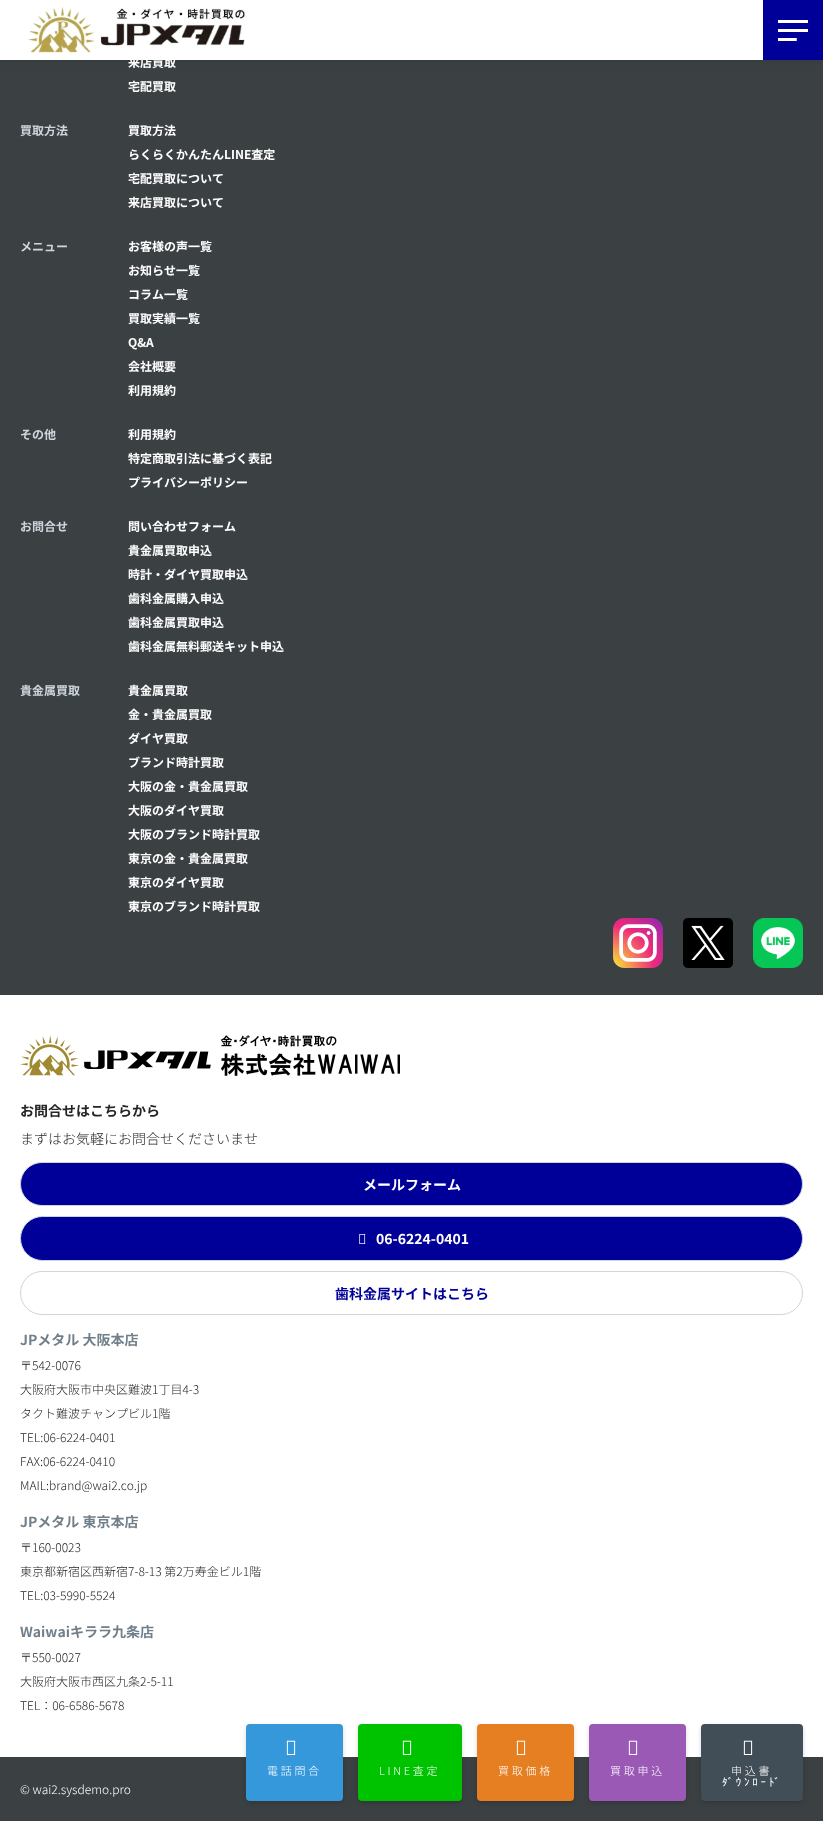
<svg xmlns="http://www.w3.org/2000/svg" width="823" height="1821">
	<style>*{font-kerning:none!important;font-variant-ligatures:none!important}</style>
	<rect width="100%" height="100%" fill="#FFFFFF" />
	<rect x="0" y="60" width="823" height="935" fill="#3B4043" />
	<rect x="0" y="2" width="823" height="60" fill="#000000" fill-opacity="0.08" filter="blur(2px)" />
	<rect x="0" y="0" width="763" height="60" fill="#FFFFFF" />
	<image x="28" y="7" width="218" height="46" href="assets/img1.png" />
	<rect x="763" y="0" width="60" height="60" fill="#000099" />
	<image x="778" y="20" width="30" height="21" href="assets/img2.png" />
	<g font-family="Noto Sans JP" font-size="12" font-weight="700" fill="#FFFFFF">
		<text x="128" y="67">来店買取</text>
		<text x="128" y="91">宅配買取</text>
	</g>
	<text x="20" y="135" font-family="Noto Sans JP" font-size="12" font-weight="700" fill="#CDD6DD">買取方法</text>
	<g font-family="Noto Sans JP" font-size="12" font-weight="700" fill="#FFFFFF">
		<text x="128" y="135">買取方法</text>
		<text x="128" y="159">らくらくかんたんLINE査定</text>
		<text x="128" y="183">宅配買取について</text>
		<text x="128" y="207">来店買取について</text>
	</g>
	<text x="20" y="251" font-family="Noto Sans JP" font-size="12" font-weight="700" fill="#CDD6DD">メニュー</text>
	<g font-family="Noto Sans JP" font-size="12" font-weight="700" fill="#FFFFFF">
		<text x="128" y="251">お客様の声一覧</text>
		<text x="128" y="275">お知らせ一覧</text>
		<text x="128" y="299">コラム一覧</text>
		<text x="128" y="323">買取実績一覧</text>
		<text x="128" y="347">Q&amp;A</text>
		<text x="128" y="371">会社概要</text>
		<text x="128" y="395">利用規約</text>
	</g>
	<text x="20" y="439" font-family="Noto Sans JP" font-size="12" font-weight="700" fill="#CDD6DD">その他</text>
	<g font-family="Noto Sans JP" font-size="12" font-weight="700" fill="#FFFFFF">
		<text x="128" y="439">利用規約</text>
		<text x="128" y="463">特定商取引法に基づく表記</text>
		<text x="128" y="487">プライバシーポリシー</text>
	</g>
	<text x="20" y="531" font-family="Noto Sans JP" font-size="12" font-weight="700" fill="#CDD6DD">お問合せ</text>
	<g font-family="Noto Sans JP" font-size="12" font-weight="700" fill="#FFFFFF">
		<text x="128" y="531">問い合わせフォーム</text>
		<text x="128" y="555">貴金属買取申込</text>
		<text x="128" y="579">時計・ダイヤ買取申込</text>
		<text x="128" y="603">⻭科金属購入申込</text>
		<text x="128" y="627">⻭科金属買取申込</text>
		<text x="128" y="651">⻭科金属無料郵送キット申込</text>
	</g>
	<text x="20" y="695" font-family="Noto Sans JP" font-size="12" font-weight="700" fill="#CDD6DD">貴金属買取</text>
	<g font-family="Noto Sans JP" font-size="12" font-weight="700" fill="#FFFFFF">
		<text x="128" y="695">貴金属買取</text>
		<text x="128" y="719">金・貴金属買取</text>
		<text x="128" y="743">ダイヤ買取</text>
		<text x="128" y="767">ブランド時計買取</text>
		<text x="128" y="791">大阪の金・貴金属買取</text>
		<text x="128" y="815">大阪のダイヤ買取</text>
		<text x="128" y="839">大阪のブランド時計買取</text>
		<text x="128" y="863">東京の金・貴金属買取</text>
		<text x="128" y="887">東京のダイヤ買取</text>
		<text x="128" y="911">東京のブランド時計買取</text>
	</g>
	<image x="613" y="918" width="50" height="50" href="assets/img3.png" />
	<image x="683" y="918" width="50" height="50" href="assets/img4.png" />
	<image x="753" y="918" width="50" height="50" href="assets/img5.png" />
	<image x="20" y="1035" width="380" height="41" href="assets/img6.png" />
	<text x="20" y="1116" font-family="Noto Sans JP" font-size="14" font-weight="700" fill="#252525">お問合せはこちらから</text>
	<text x="20" y="1144" font-family="Noto Sans JP" font-size="14" font-weight="300" fill="#252525">まずはお気軽にお問合せくださいませ</text>
	<rect x="20.5" y="1162.5" width="782" height="43" rx="21.5" fill="#000099" stroke="#CDD6DD" />
	<text x="363" y="1190" font-family="Noto Sans JP" font-size="14" font-weight="700" fill="#FFFFFF">メールフォーム</text>
	<rect x="20.5" y="1216.5" width="782" height="44" rx="22" fill="#000099" stroke="#CDD6DD" />
	<image x="359" y="1234" width="7" height="10" href="assets/img7.png" />
	<text x="376" y="1244" font-family="Noto Sans JP" font-size="14" font-weight="700" fill="#FFFFFF">06-6224-0401</text>
	<rect x="20.5" y="1271.5" width="782" height="43" rx="21.5" fill="none" stroke="#CDD6DD" />
	<text x="335" y="1299" font-family="Noto Sans JP" font-size="14" font-weight="700" fill="#000099">歯科金属サイトはこちら</text>
	<text x="20" y="1345" font-family="Noto Sans JP" font-size="14" font-weight="700" fill="#707F89">JPメタル 大阪本店</text>
	<g font-family="Noto Sans JP" font-size="12" font-weight="300" fill="#252525">
		<text x="20" y="1370">〒542-0076</text>
		<text x="20" y="1394">大阪府大阪市中央区難波1丁目4-3</text>
		<text x="20" y="1418">タクト難波チャンプビル1階</text>
		<text x="20" y="1442">TEL:06-6224-0401</text>
		<text x="20" y="1466">FAX:06-6224-0410</text>
		<text x="20" y="1490">MAIL:brand@wai2.co.jp</text>
	</g>
	<text x="20" y="1527" font-family="Noto Sans JP" font-size="14" font-weight="700" fill="#707F89">JPメタル 東京本店</text>
	<g font-family="Noto Sans JP" font-size="12" font-weight="300" fill="#252525">
		<text x="20" y="1552">〒160-0023</text>
		<text x="20" y="1576">東京都新宿区西新宿7-8-13 第2万寿金ビル1階</text>
		<text x="20" y="1600">TEL:03-5990-5524</text>
	</g>
	<text x="20" y="1637" font-family="Noto Sans JP" font-size="14" font-weight="700" fill="#707F89">Waiwaiキララ九条店</text>
	<g font-family="Noto Sans JP" font-size="12" font-weight="300" fill="#252525">
		<text x="20" y="1662">〒550-0027</text>
		<text x="20" y="1686">大阪府大阪市西区九条2-5-11</text>
		<text x="20" y="1710">TEL：06-6586-5678</text>
	</g>
	<rect x="0" y="1757" width="823" height="64" fill="#3B4043" />
	<text x="20" y="1794" font-family="Noto Sans JP" font-size="12" font-weight="300" fill="#FFFFFF">© wai2.sysdemo.pro</text>
	<rect x="246" y="1726" width="97" height="77" rx="4" fill="#000000" fill-opacity="0.16" filter="blur(2px)" />
	<rect x="246" y="1724" width="97" height="77" rx="4" fill="#3498DB" />
	<image x="286" y="1740" width="10" height="15" href="assets/img8.png" />
	<text x="267" y="1775" font-family="Noto Sans JP" font-size="11" font-weight="300" letter-spacing="2.75" fill="#FFFFFF">電話問合</text>
	<rect x="358" y="1726" width="104" height="77" rx="4" fill="#000000" fill-opacity="0.16" filter="blur(2px)" />
	<rect x="358" y="1724" width="104" height="77" rx="4" fill="#00C300" />
	<image x="402" y="1740" width="10" height="15" href="assets/img9.png" />
	<text x="379" y="1775" font-family="Noto Sans JP" font-size="11" font-weight="300" letter-spacing="2.75" fill="#FFFFFF">LINE査定</text>
	<rect x="477" y="1726" width="97" height="77" rx="4" fill="#000000" fill-opacity="0.16" filter="blur(2px)" />
	<rect x="477" y="1724" width="97" height="77" rx="4" fill="#E67E22" />
	<image x="516" y="1740" width="10" height="15" href="assets/img10.png" />
	<text x="498" y="1775" font-family="Noto Sans JP" font-size="11" font-weight="300" letter-spacing="2.75" fill="#FFFFFF">買取価格</text>
	<rect x="589" y="1726" width="97" height="77" rx="4" fill="#000000" fill-opacity="0.16" filter="blur(2px)" />
	<rect x="589" y="1724" width="97" height="77" rx="4" fill="#9B59B6" />
	<image x="628" y="1740" width="10" height="15" href="assets/img11.png" />
	<text x="610" y="1775" font-family="Noto Sans JP" font-size="11" font-weight="300" letter-spacing="2.75" fill="#FFFFFF">買取申込</text>
	<rect x="701" y="1726" width="102" height="77" rx="4" fill="#000000" fill-opacity="0.16" filter="blur(2px)" />
	<rect x="701" y="1724" width="102" height="77" rx="4" fill="#414E57" />
	<image x="743" y="1740" width="10" height="15" href="assets/img12.png" />
	<text x="731" y="1775" font-family="Noto Sans JP" font-size="11" font-weight="300" letter-spacing="2.75" fill="#FFFFFF">申込書</text>
	<text x="722" y="1786" font-family="IPAPGothic" font-size="11" letter-spacing="2.75" fill="#FFFFFF">ﾀﾞｳﾝﾛｰﾄﾞ</text>
</svg>
